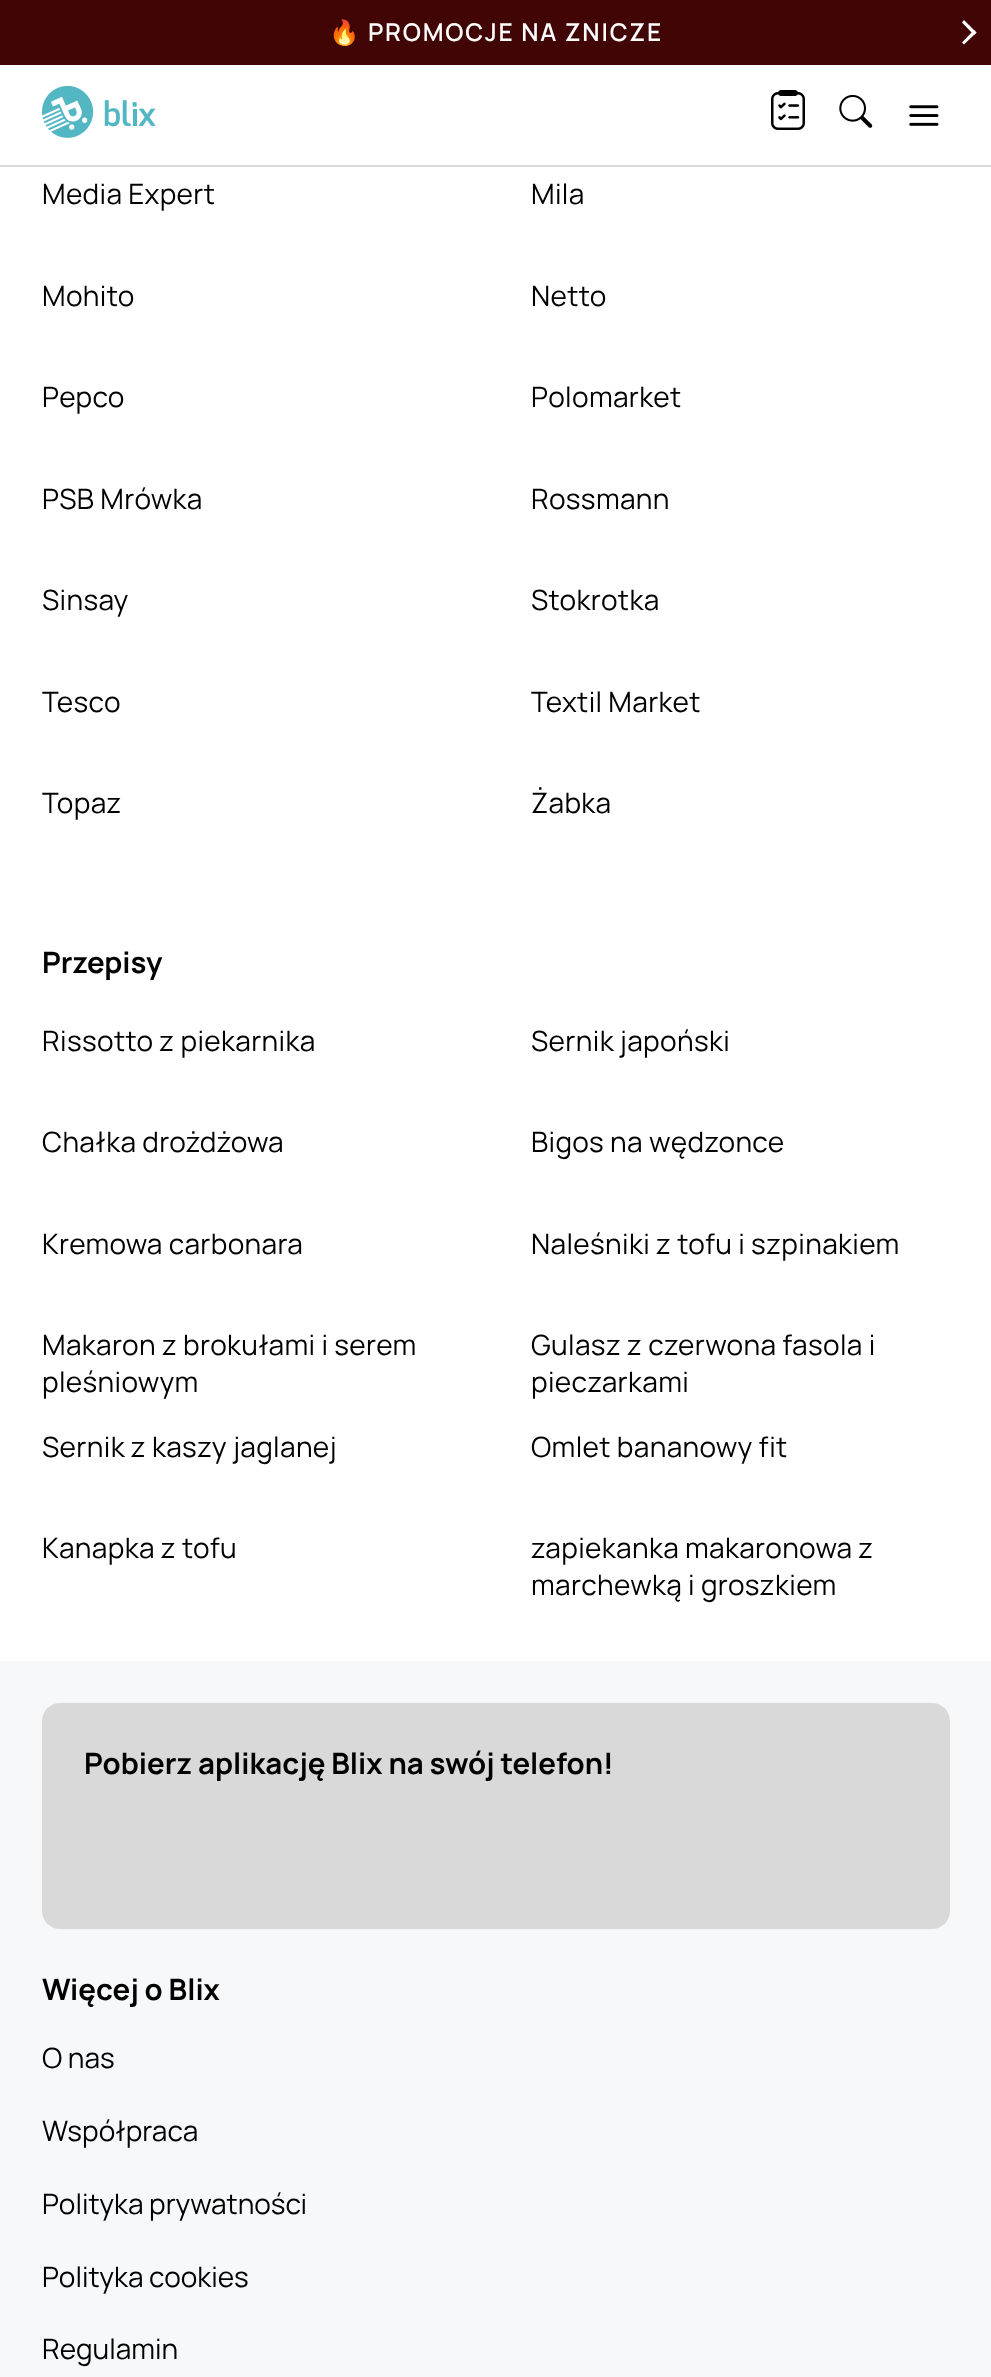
<svg xmlns="http://www.w3.org/2000/svg" width="991" height="2377">
	<rect width="100%" height="100%" fill="#FFFFFF" />
	<rect x="0" y="0" width="991" height="65" fill="#420505" />
	<text x="329" y="41" font-family="Noto Color Emoji" font-size="24.5" font-weight="700" letter-spacing="1.75" fill="#FCFCFC">🔥</text>
	<text x="368" y="41" font-family="Manrope" font-size="24.5" font-weight="600" letter-spacing="1.75" fill="#FCFCFC">PROMOCJE NA ZNICZE</text>
	<path d="M962 22.5L964 20L976.5 32.5L974 35Z" fill="#FFFFFF" />
	<path d="M962 42.5L974 30L976.5 32.5L964 44.5Z" fill="#FFFFFF" />
	<rect x="0" y="165" width="991" height="2" fill="#D9D9D9" />
	<image x="42" y="86" width="114" height="52" href="assets/img1.png" />
	<image x="771" y="90" width="34" height="40" href="assets/img2.png" />
	<image x="839" y="95" width="34" height="33" href="assets/img3.png" />
	<image x="909" y="105" width="30" height="21" href="assets/img4.png" />
	<g font-family="Manrope" font-size="28" letter-spacing="0.35" fill="#000000">
		<text x="42" y="204">Media Expert</text>
		<text x="531" y="204">Mila</text>
		<text x="42" y="306">Mohito</text>
		<text x="531" y="306">Netto</text>
		<text x="42" y="407">Pepco</text>
		<text x="531" y="407">Polomarket</text>
		<text x="42" y="509">PSB Mrówka</text>
		<text x="531" y="509">Rossmann</text>
		<text x="42" y="610">Sinsay</text>
		<text x="531" y="610">Stokrotka</text>
		<text x="42" y="712">Tesco</text>
		<text x="531" y="712">Textil Market</text>
		<text x="42" y="813">Topaz</text>
		<text x="531" y="813">Żabka</text>
	</g>
	<text x="42" y="973" font-family="Manrope" font-size="29.4" font-weight="700" fill="#000000">Przepisy</text>
	<g font-family="Manrope" font-size="28" letter-spacing="0.35" fill="#000000">
		<text x="42" y="1051">Rissotto z piekarnika</text>
		<text x="531" y="1051">Sernik japoński</text>
		<text x="42" y="1152">Chałka drożdżowa</text>
		<text x="531" y="1152">Bigos na wędzonce</text>
		<text x="42" y="1254">Kremowa carbonara</text>
		<text x="531" y="1254">Naleśniki z tofu i szpinakiem</text>
		<text x="42" y="1355">Makaron z brokułami i serem</text>
		<text x="42" y="1392">pleśniowym</text>
		<text x="531" y="1355">Gulasz z czerwona fasola i</text>
		<text x="531" y="1392">pieczarkami</text>
		<text x="42" y="1457">Sernik z kaszy jaglanej</text>
		<text x="531" y="1457">Omlet bananowy fit</text>
		<text x="42" y="1558">Kanapka z tofu</text>
		<text x="531" y="1558">zapiekanka makaronowa z</text>
		<text x="531" y="1595">marchewką i groszkiem</text>
	</g>
	<rect x="0" y="1661" width="991" height="716" fill="#F7F8F9" />
	<rect x="42" y="1703" width="908" height="226" rx="18" fill="#D9D9D9" />
	<g font-family="Manrope" font-size="29.4" font-weight="700" fill="#000000">
		<text x="84" y="1774">Pobierz aplikację Blix na swój telefon!</text>
		<text x="42" y="2000">Więcej o Blix</text>
	</g>
	<g font-family="Manrope" font-size="28" fill="#000000">
		<text x="42" y="2068">O nas</text>
		<text x="42" y="2141">Współpraca</text>
		<text x="42" y="2214">Polityka prywatności</text>
		<text x="42" y="2287">Polityka cookies</text>
		<text x="42" y="2359">Regulamin</text>
	</g>
</svg>
